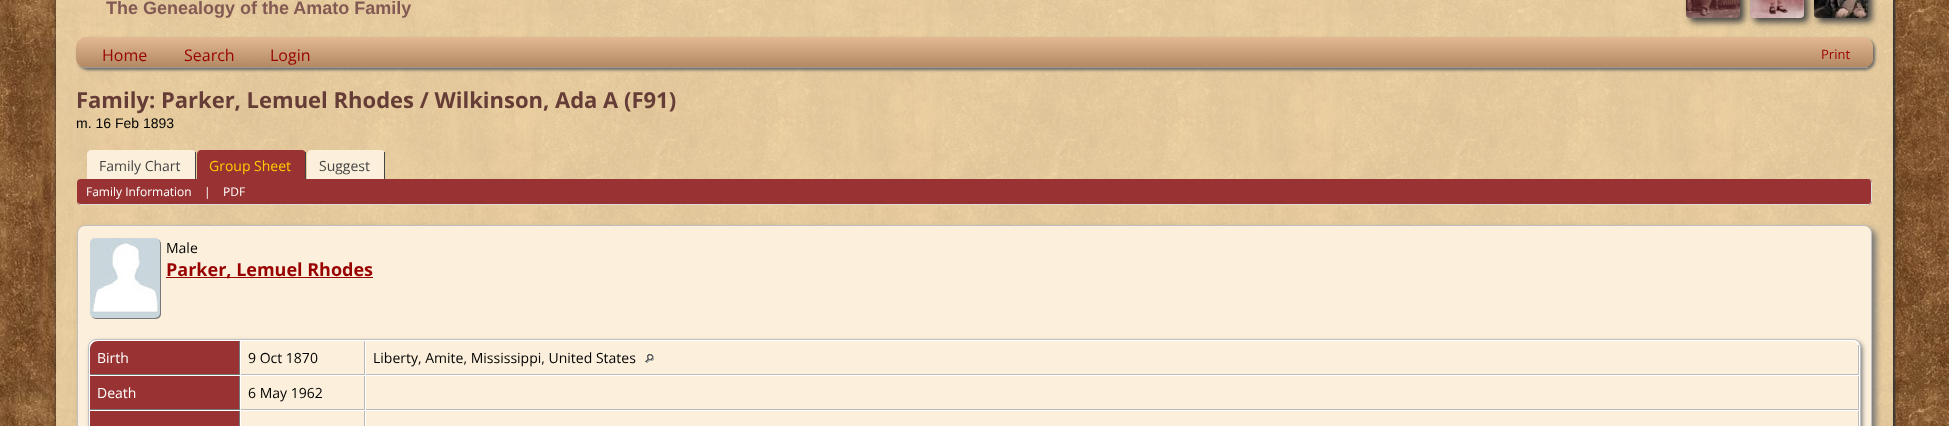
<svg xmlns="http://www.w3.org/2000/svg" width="1949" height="426">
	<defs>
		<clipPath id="clip1"><path d="M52 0H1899V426H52ZM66-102H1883C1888.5-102 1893-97.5 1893-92V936C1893 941.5 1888.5 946 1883 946H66C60.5 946 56 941.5 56 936V-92C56-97.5 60.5-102 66-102Z" clip-rule="evenodd" /></clipPath>
		<clipPath id="clip2"><rect x="76" y="37" width="1797" height="31" rx="10" /></clipPath>
		<linearGradient id="g1" gradientUnits="userSpaceOnUse" x1="975" y1="37" x2="975" y2="67"><stop offset="0" stop-color="#E2B993" /><stop offset="1" stop-color="#B28963" /></linearGradient>
	</defs>
	<rect width="100%" height="100%" fill="#FFFFFF" />
	<image x="0" y="0" width="1949" height="426" href="assets/img1.png" />
	<g clip-path="url(#clip1)">
		<rect x="56" y="-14" width="1839" height="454" rx="11" fill="#333333" filter="blur(1px)" />
	</g>
	<text x="106" y="14" font-family="Liberation Sans" font-size="18" font-weight="700" fill="#825953">The Genealogy of the Amato Family</text>
	<rect x="1818" y="-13" width="54" height="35" rx="4" fill="#444444" filter="blur(3px)" />
	<image x="1814" y="0" width="54" height="18" href="assets/img4.png" />
	<rect x="1754" y="-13" width="54" height="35" rx="4" fill="#444444" filter="blur(3px)" />
	<image x="1750" y="0" width="54" height="18" href="assets/img3.png" />
	<rect x="1690" y="-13" width="54" height="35" rx="4" fill="#444444" filter="blur(3px)" />
	<image x="1686" y="0" width="54" height="18" href="assets/img2.png" />
	<rect x="78" y="39" width="1797" height="31" rx="10" fill="#666666" filter="blur(1.5px)" />
	<rect x="76" y="37" width="1797" height="31" rx="10" fill="#E2B993" />
	<g clip-path="url(#clip2)">
		<path d="M86 37H1863C1868.5 37 1873 41.5 1873 47V67H76V47C76 41.5 80.5 37 86 37Z" fill="url(#g1)" />
	</g>
	<rect x="81" y="67" width="1787" height="1" fill="#999999" />
	<g font-family="Open Sans" font-size="16" fill="#990000">
		<text x="102" y="61">Home</text>
		<text x="184" y="61">Search</text>
		<text x="270" y="61">Login</text>
	</g>
	<text x="1821" y="59" font-family="Open Sans" font-size="13" fill="#990000">Print</text>
	<text x="76" y="108" font-family="Open Sans" font-size="22" font-weight="700" fill="#663C36">Family: Parker, Lemuel Rhodes / Wilkinson, Ada A (F91)</text>
	<text x="76" y="128" font-family="Liberation Sans" font-size="14" fill="#000000">m. 16 Feb 1893</text>
	<path d="M91 150H192C194 150 196 152 196 154V179H87V154C87 152 89 150 91 150Z" fill="#FCF0DC" />
	<rect x="195" y="152" width="1" height="27" fill="#444444" />
	<text x="99" y="171" font-family="Open Sans" font-size="14" fill="#444444">Family Chart</text>
	<path d="M201 150H302C304 150 306 152 306 154V179H197V154C197 152 199 150 201 150Z" fill="#993333" />
	<rect x="305" y="152" width="1" height="27" fill="#444444" />
	<text x="209" y="171" font-family="Open Sans" font-size="14" fill="#FFCC00">Group Sheet</text>
	<path d="M311 150H381C383 150 385 152 385 154V179H307V154C307 152 309 150 311 150Z" fill="#FCF0DC" />
	<rect x="384" y="152" width="1" height="27" fill="#444444" />
	<text x="319" y="171" font-family="Open Sans" font-size="14" fill="#444444">Suggest</text>
	<rect x="77" y="179" width="1795" height="26" rx="4" fill="#993333" />
	<path d="M81 179H1868C1870 179 1872 181 1872 183V201C1872 203 1870 205 1868 205H81C79 205 77 203 77 201V183C77 181 79 179 81 179ZM81 179H1868C1870 179 1871 181 1871 183V201C1871 203 1870 204 1868 204H81C79 204 77 203 77 201V183C77 181 79 179 81 179Z" fill="#DDDDDD" fill-rule="evenodd" />
	<g font-family="Open Sans" font-size="12" fill="#FFFFFF">
		<text x="86" y="196">Family Information</text>
		<text x="204" y="196">|</text>
		<text x="223" y="196">PDF</text>
	</g>
	<rect x="81" y="229" width="1795" height="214" rx="8" fill="#777777" filter="blur(3px)" />
	<rect x="77.5" y="225.5" width="1794" height="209" rx="7.5" fill="#FCF0DC" stroke="#C0C0C0" />
	<rect x="91" y="239" width="70" height="80" rx="5" fill="#777777" filter="blur(0.5px)" />
	<image x="90" y="238" width="70" height="80" href="assets/img5.png" />
	<text x="166" y="253" font-family="Open Sans" font-size="14" fill="#000000">Male</text>
	<rect x="166" y="277" width="207" height="1" fill="#990000" />
	<text x="166" y="276" font-family="Open Sans" font-size="18" font-weight="700" fill="#990000">Parker, Lemuel Rhodes</text>
	<rect x="91" y="342" width="1771" height="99" rx="7" fill="#666666" filter="blur(2.5px)" />
	<rect x="88.5" y="339.5" width="1772" height="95" rx="7.5" fill="#FFFFFF" stroke="#C0C0C0" />
	<path d="M98 341H240V375H90V349C90 344.5 93.5 341 98 341Z" fill="#993333" />
	<rect x="239" y="341" width="1" height="34" fill="#777777" />
	<rect x="90" y="374" width="150" height="1" fill="#777777" />
	<text x="97" y="363" font-family="Open Sans" font-size="14" fill="#FFFFFF">Birth</text>
	<rect x="241" y="341" width="123" height="33" fill="#FCF0DC" />
	<rect x="364" y="341" width="1" height="34" fill="#BBBBBB" />
	<rect x="241" y="374" width="124" height="1" fill="#BBBBBB" />
	<text x="248" y="363" font-family="Open Sans" font-size="14" fill="#000000">9 Oct 1870</text>
	<path d="M366 341H1851C1855.5 341 1859 344.5 1859 349V375H366Z" fill="#FCF0DC" />
	<rect x="1858" y="345" width="1" height="30" fill="#BBBBBB" />
	<rect x="366" y="374" width="1493" height="1" fill="#BBBBBB" />
	<text x="373" y="363" font-family="Open Sans" font-size="14" fill="#000000">Liberty, Amite, Mississippi, United States</text>
	<image x="645" y="354" width="9" height="9" href="assets/img6.png" />
	<rect x="90" y="376" width="149" height="33" fill="#993333" />
	<rect x="239" y="376" width="1" height="34" fill="#777777" />
	<rect x="90" y="409" width="150" height="1" fill="#777777" />
	<text x="97" y="398" font-family="Open Sans" font-size="14" fill="#FFFFFF">Death</text>
	<rect x="241" y="376" width="123" height="33" fill="#FCF0DC" />
	<rect x="364" y="376" width="1" height="34" fill="#BBBBBB" />
	<rect x="241" y="409" width="124" height="1" fill="#BBBBBB" />
	<text x="248" y="398" font-family="Open Sans" font-size="14" fill="#000000">6 May 1962</text>
	<rect x="366" y="376" width="1492" height="33" fill="#FCF0DC" />
	<rect x="1858" y="376" width="1" height="34" fill="#BBBBBB" />
	<rect x="366" y="409" width="1493" height="1" fill="#BBBBBB" />
	<rect x="90" y="411" width="149" height="15" fill="#993333" />
	<rect x="239" y="411" width="1" height="15" fill="#777777" />
	<rect x="241" y="411" width="123" height="15" fill="#FCF0DC" />
	<rect x="364" y="411" width="1" height="15" fill="#BBBBBB" />
	<rect x="366" y="411" width="1492" height="15" fill="#FCF0DC" />
	<rect x="1858" y="411" width="1" height="15" fill="#BBBBBB" />
</svg>
